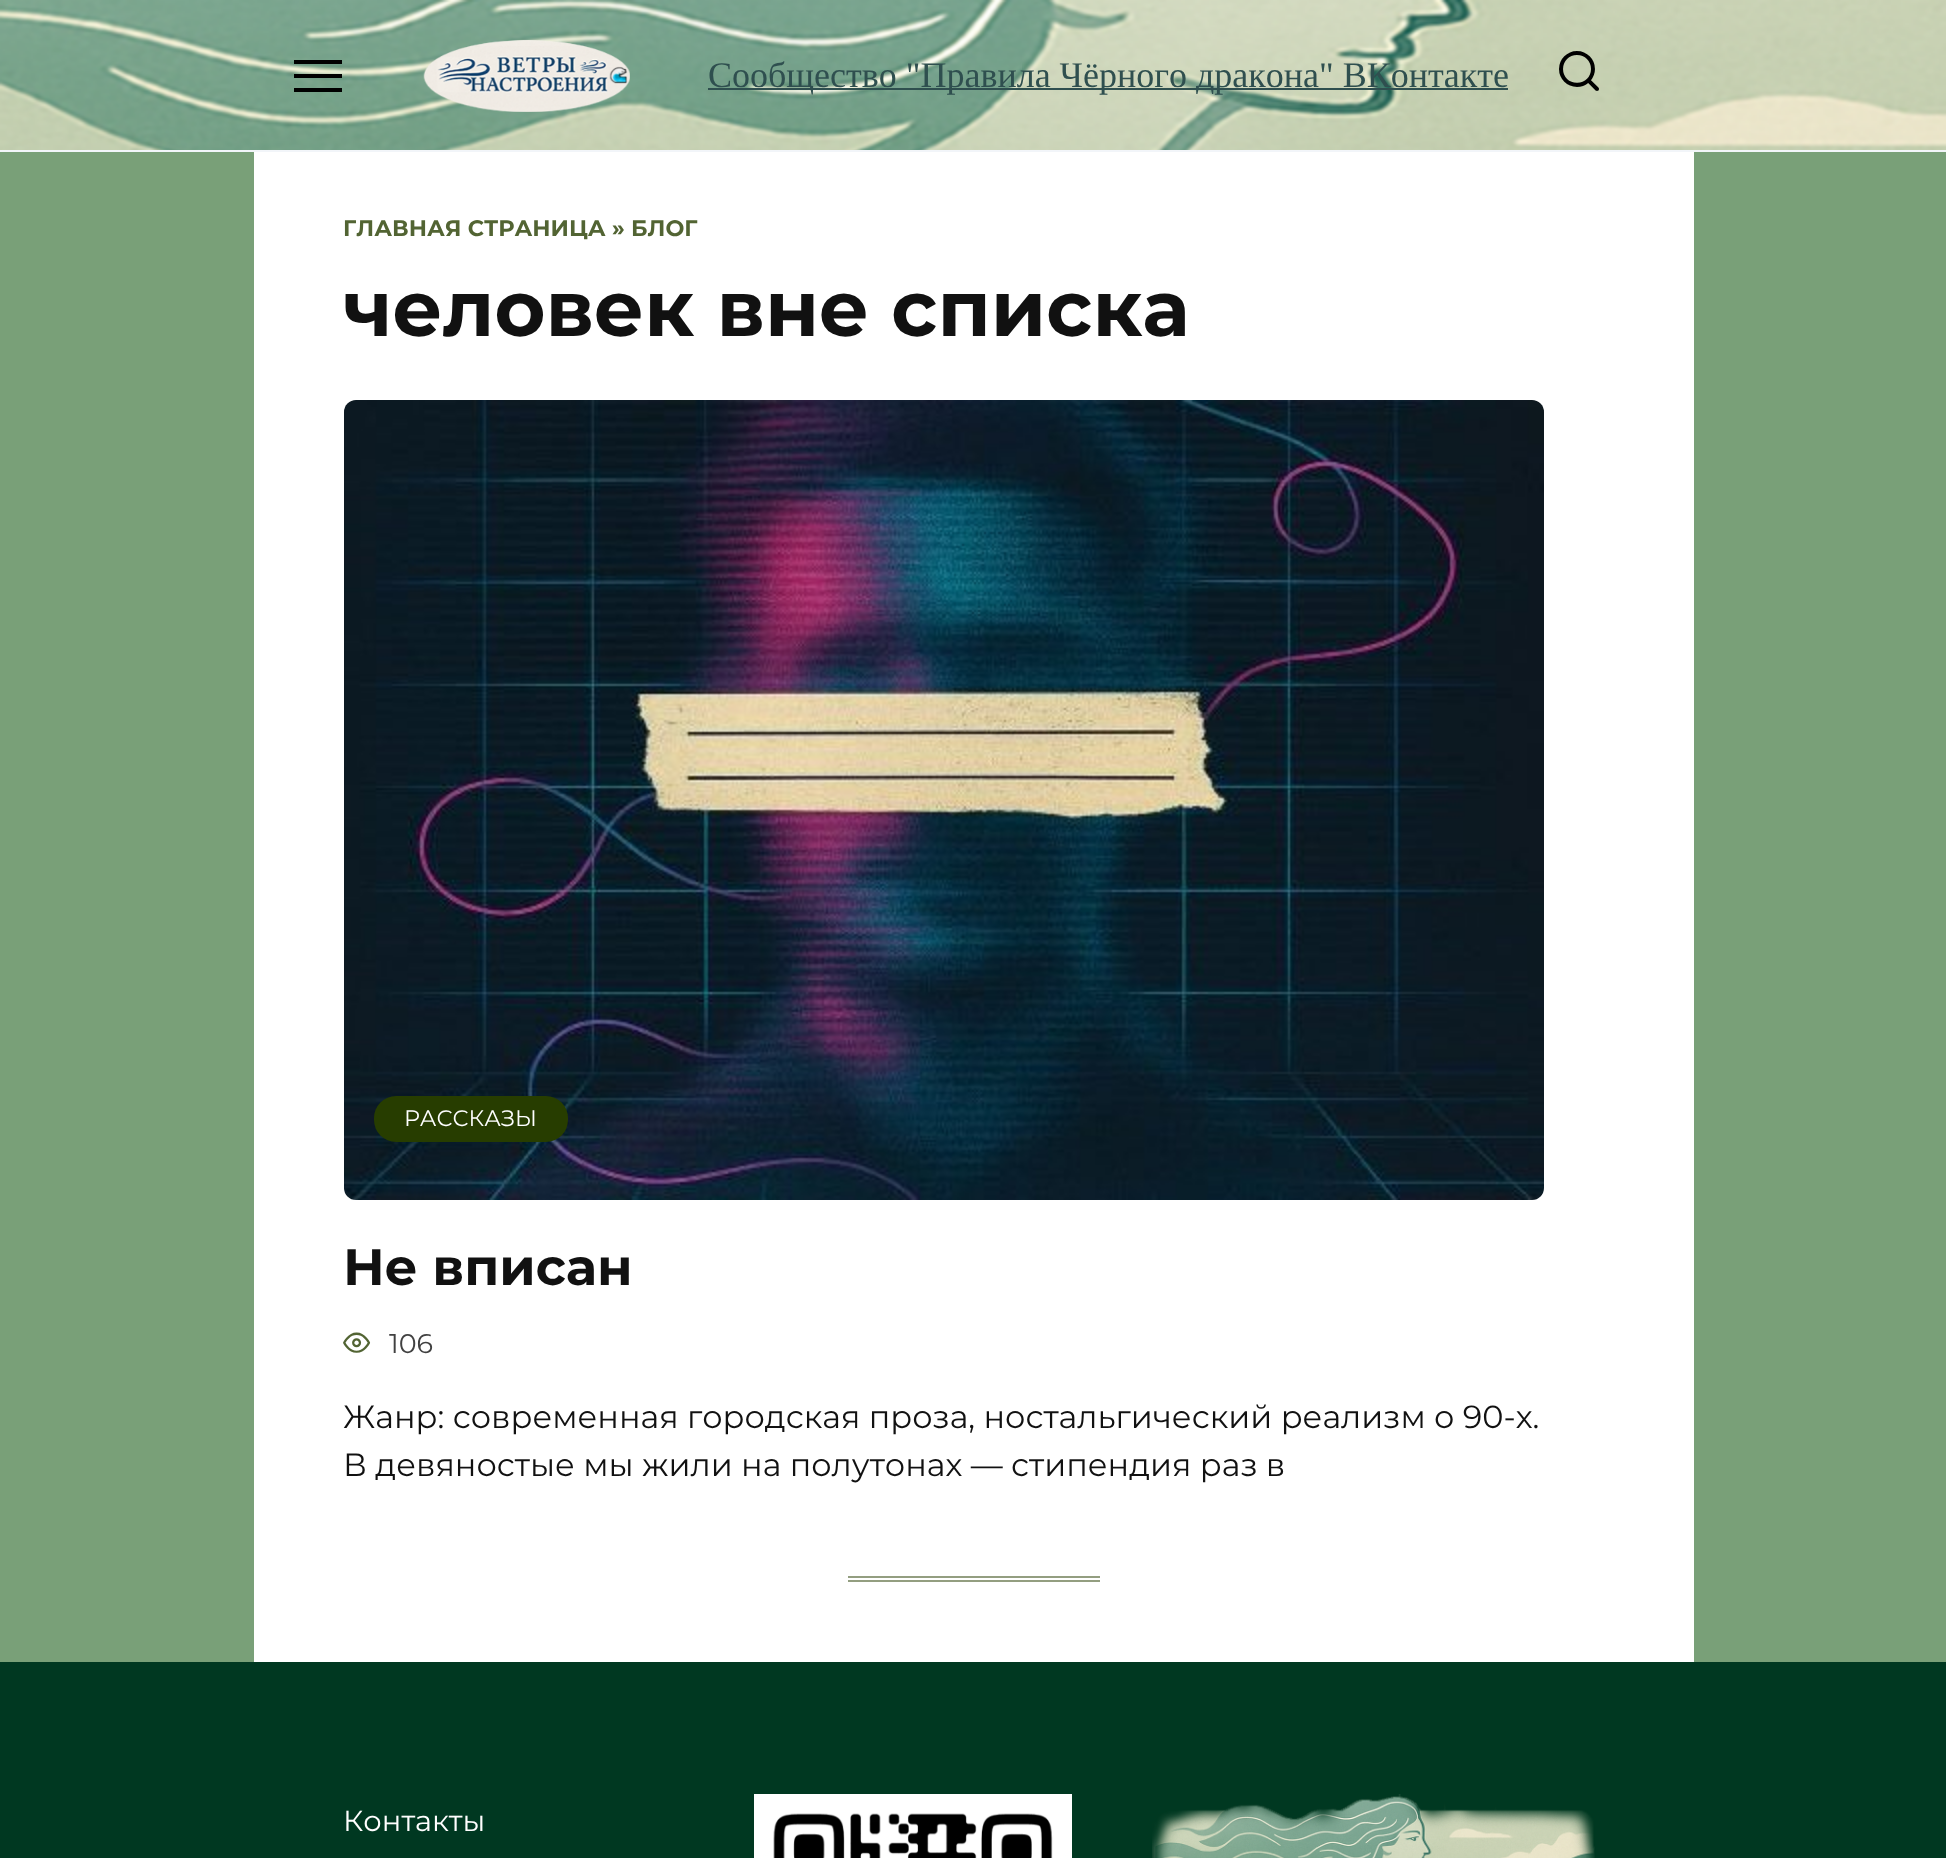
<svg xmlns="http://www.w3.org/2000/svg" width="1946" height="1858">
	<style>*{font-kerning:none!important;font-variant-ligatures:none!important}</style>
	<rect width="100%" height="100%" fill="#79A078" />
	<image x="0" y="0" width="1946" height="150" href="assets/img1.png" />
	<rect x="0" y="150" width="1946" height="2" fill="#F2F5F9" />
	<rect x="294" y="60" width="48" height="4" fill="#000000" />
	<rect x="294" y="74" width="48" height="4" fill="#000000" />
	<rect x="294" y="88" width="48" height="4" fill="#000000" />
	<image x="423" y="40" width="207" height="72" href="assets/img2.png" />
	<rect x="708" y="88" width="800" height="2" fill="#2F4F4F" />
	<text x="708" y="87" font-family="Liberation Serif" font-size="36" fill="#2F4F4F">Сообщество "Правила Чёрного дракона" ВКонтакте</text>
	<text x="1555" y="91" font-family="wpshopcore" font-size="48" fill="#000000">🔍</text>
	<rect x="254" y="152" width="1440" height="1510" fill="#FFFFFF" />
	<text x="343" y="236" font-family="Montserrat" font-size="22.4" font-weight="700" fill="#526433">ГЛАВНАЯ СТРАНИЦА » БЛОГ</text>
	<text x="343" y="336" font-family="Montserrat" font-size="78" font-weight="700" fill="#111111">человек вне списка</text>
	<image x="344" y="400" width="1200" height="800" href="assets/img3.png" />
	<rect x="374" y="1096" width="194" height="46" rx="22" fill="#273D00" />
	<text x="404" y="1126" font-family="Montserrat" font-size="22.4" fill="#FFFFFF">РАССКАЗЫ</text>
	<text x="343" y="1285" font-family="Montserrat" font-size="51.25" font-weight="700" fill="#111111">Не вписан</text>
	<text x="343" y="1354" font-family="wpshopcore" font-size="27" fill="#526433">👀</text>
	<text x="389" y="1353" font-family="Montserrat" font-size="27" fill="#414141">106</text>
	<g font-family="Montserrat" font-size="32" fill="#111111">
		<text x="343" y="1428">Жанр: современная городская проза, ностальгический реализм о 90-х.</text>
		<text x="343" y="1476">В девяностые мы жили на полутонах — стипендия раз в</text>
	</g>
	<rect x="848" y="1576" width="252" height="2" fill="#939E80" />
	<rect x="848" y="1580" width="252" height="2" fill="#939E80" />
	<rect x="0" y="1662" width="1946" height="196" fill="#003821" />
	<text x="343" y="1831" font-family="Montserrat" font-size="29" fill="#FFFFFF">Контакты</text>
	<image x="754" y="1794" width="318" height="64" href="assets/img4.png" />
	<image x="1152" y="1794" width="443" height="64" href="assets/img5.png" />
</svg>
